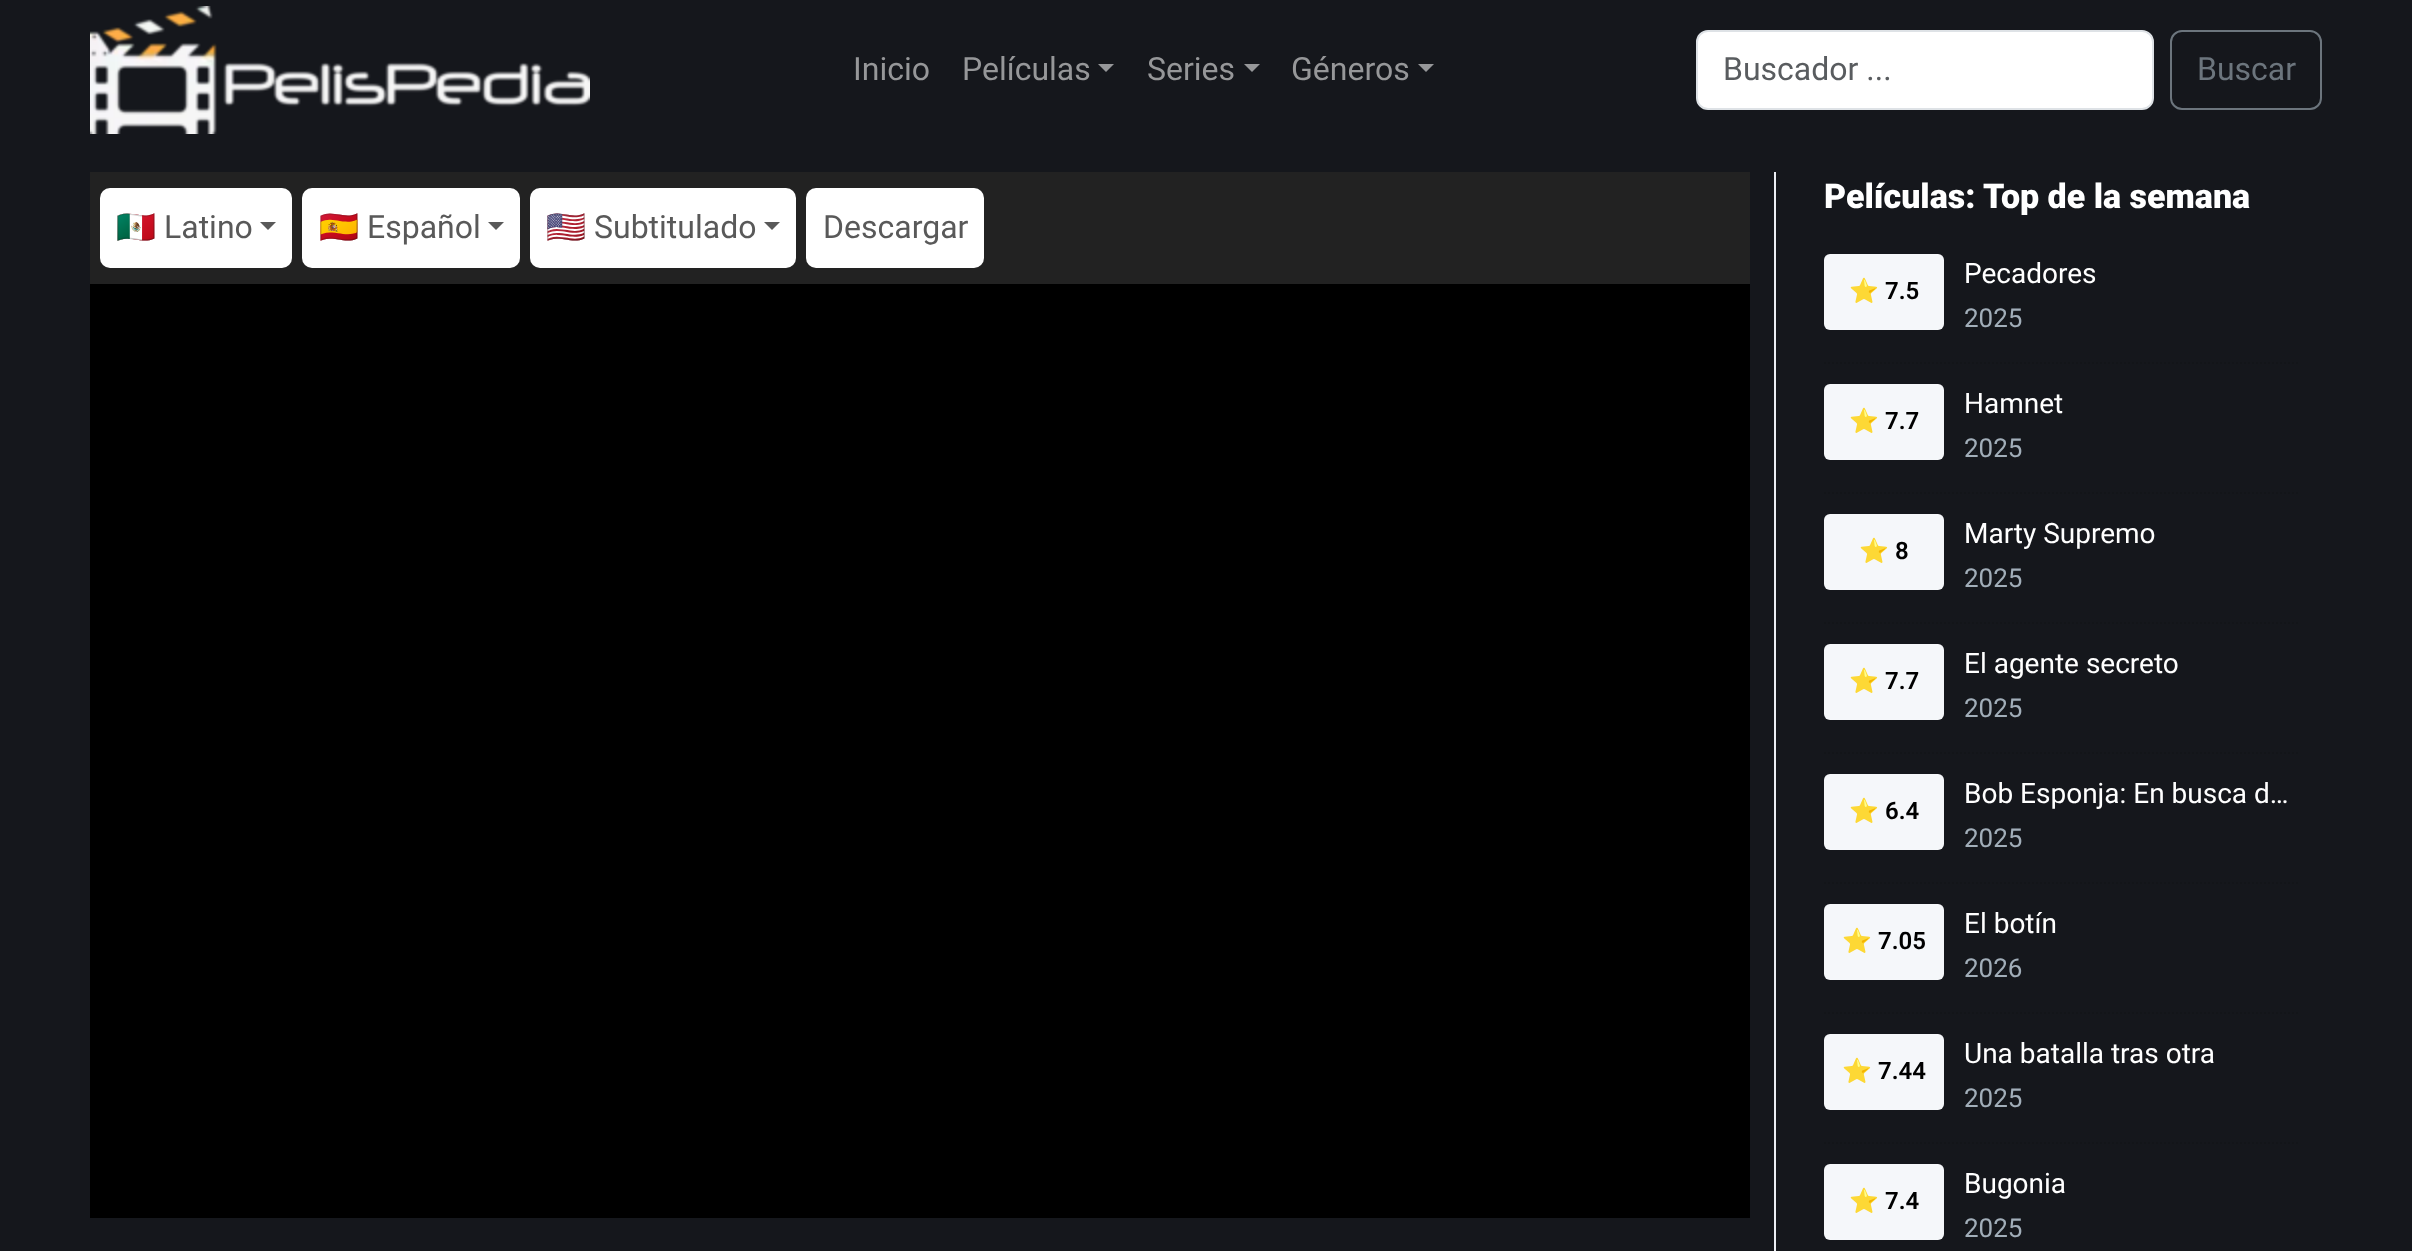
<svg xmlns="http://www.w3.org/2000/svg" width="2412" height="1251">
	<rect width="100%" height="100%" fill="#15171C" />
	<image x="90" y="6" width="500" height="128" href="assets/img1.png" />
	<g font-family="Roboto" font-size="32" fill="#969799">
		<text x="853" y="80">Inicio</text>
		<text x="962" y="80">Películas</text>
	</g>
	<path d="M1098 64H1114L1106 72Z" fill="#969799" />
	<text x="1147" y="80" font-family="Roboto" font-size="32" fill="#969799">Series</text>
	<path d="M1244 64H1260L1252 72Z" fill="#969799" />
	<text x="1291" y="80" font-family="Roboto" font-size="32" fill="#969799">Géneros</text>
	<path d="M1418 64H1434L1426 72Z" fill="#969799" />
	<rect x="1697" y="31" width="456" height="78" rx="11" fill="#FFFFFF" stroke="#DEE2E6" stroke-width="2" />
	<text x="1723" y="80" font-family="Roboto" font-size="32" fill="#595C5F">Buscador ...</text>
	<rect x="2171" y="31" width="150" height="78" rx="11" fill="none" stroke="#6C757D" stroke-width="2" />
	<text x="2197" y="80" font-family="Roboto" font-size="32" fill="#6C757D">Buscar</text>
	<rect x="1774" y="172" width="2" height="1079" fill="#ECEFF5" />
	<rect x="90" y="172" width="1660" height="112" fill="#222222" />
	<rect x="100" y="188" width="192" height="80" rx="10" fill="#FFFFFF" />
	<text x="116" y="238" font-family="Noto Color Emoji" font-size="32" fill="#595959">🇲🇽</text>
	<text x="164" y="238" font-family="Roboto" font-size="32" fill="#595959">Latino</text>
	<path d="M260 222H276L268 230Z" fill="#595959" />
	<rect x="302" y="188" width="218" height="80" rx="10" fill="#FFFFFF" />
	<text x="319" y="238" font-family="Noto Color Emoji" font-size="32" fill="#595959">🇪🇸</text>
	<text x="367" y="238" font-family="Roboto" font-size="32" fill="#595959">Español</text>
	<path d="M488 222H504L496 230Z" fill="#595959" />
	<rect x="530" y="188" width="266" height="80" rx="10" fill="#FFFFFF" />
	<text x="546" y="238" font-family="Noto Color Emoji" font-size="32" fill="#595959">🇺🇸</text>
	<text x="594" y="238" font-family="Roboto" font-size="32" fill="#595959">Subtitulado</text>
	<path d="M764 222H780L772 230Z" fill="#595959" />
	<rect x="806" y="188" width="178" height="80" rx="10" fill="#FFFFFF" />
	<text x="823" y="238" font-family="Roboto" font-size="32" fill="#595959">Descargar</text>
	<rect x="90" y="284" width="1660" height="934" fill="#000000" />
	<text x="1824" y="208" font-family="Roboto" font-size="34" font-weight="900" fill="#FFFFFF">Películas: Top de la semana</text>
	<path d="M1824 363H2298" fill="none" stroke="#131519" stroke-width="2" stroke-dasharray="2 2" />
	<rect x="1824" y="254" width="120" height="76" rx="6" fill="#F5F7FA" />
	<text x="1849" y="299" font-family="Noto Color Emoji" font-size="24" font-weight="700" fill="#000000">⭐</text>
	<text x="1885" y="299" font-family="Roboto" font-size="24" font-weight="600" fill="#000000">7.5</text>
	<text x="1964" y="283" font-family="Roboto" font-size="28" fill="#FFFFFF">Pecadores</text>
	<text x="1964" y="327" font-family="Roboto" font-size="26" fill="#A2AEB9">2025</text>
	<path d="M1824 493H2298" fill="none" stroke="#131519" stroke-width="2" stroke-dasharray="2 2" />
	<rect x="1824" y="384" width="120" height="76" rx="6" fill="#F5F7FA" />
	<text x="1849" y="429" font-family="Noto Color Emoji" font-size="24" font-weight="700" fill="#000000">⭐</text>
	<text x="1885" y="429" font-family="Roboto" font-size="24" font-weight="600" fill="#000000">7.7</text>
	<text x="1964" y="413" font-family="Roboto" font-size="28" fill="#FFFFFF">Hamnet</text>
	<text x="1964" y="457" font-family="Roboto" font-size="26" fill="#A2AEB9">2025</text>
	<path d="M1824 623H2298" fill="none" stroke="#131519" stroke-width="2" stroke-dasharray="2 2" />
	<rect x="1824" y="514" width="120" height="76" rx="6" fill="#F5F7FA" />
	<text x="1859" y="559" font-family="Noto Color Emoji" font-size="24" font-weight="700" fill="#000000">⭐</text>
	<text x="1895" y="559" font-family="Roboto" font-size="24" font-weight="600" fill="#000000">8</text>
	<text x="1964" y="543" font-family="Roboto" font-size="28" fill="#FFFFFF">Marty Supremo</text>
	<text x="1964" y="587" font-family="Roboto" font-size="26" fill="#A2AEB9">2025</text>
	<path d="M1824 753H2298" fill="none" stroke="#131519" stroke-width="2" stroke-dasharray="2 2" />
	<rect x="1824" y="644" width="120" height="76" rx="6" fill="#F5F7FA" />
	<text x="1849" y="689" font-family="Noto Color Emoji" font-size="24" font-weight="700" fill="#000000">⭐</text>
	<text x="1885" y="689" font-family="Roboto" font-size="24" font-weight="600" fill="#000000">7.7</text>
	<text x="1964" y="673" font-family="Roboto" font-size="28" fill="#FFFFFF">El agente secreto</text>
	<text x="1964" y="717" font-family="Roboto" font-size="26" fill="#A2AEB9">2025</text>
	<path d="M1824 883H2298" fill="none" stroke="#131519" stroke-width="2" stroke-dasharray="2 2" />
	<rect x="1824" y="774" width="120" height="76" rx="6" fill="#F5F7FA" />
	<text x="1849" y="819" font-family="Noto Color Emoji" font-size="24" font-weight="700" fill="#000000">⭐</text>
	<text x="1885" y="819" font-family="Roboto" font-size="24" font-weight="600" fill="#000000">6.4</text>
	<text x="1964" y="803" font-family="Roboto" font-size="28" fill="#FFFFFF">Bob Esponja: En busca d…</text>
	<text x="1964" y="847" font-family="Roboto" font-size="26" fill="#A2AEB9">2025</text>
	<path d="M1824 1013H2298" fill="none" stroke="#131519" stroke-width="2" stroke-dasharray="2 2" />
	<rect x="1824" y="904" width="120" height="76" rx="6" fill="#F5F7FA" />
	<text x="1842" y="949" font-family="Noto Color Emoji" font-size="24" font-weight="700" fill="#000000">⭐</text>
	<text x="1878" y="949" font-family="Roboto" font-size="24" font-weight="600" fill="#000000">7.05</text>
	<text x="1964" y="933" font-family="Roboto" font-size="28" fill="#FFFFFF">El botín</text>
	<text x="1964" y="977" font-family="Roboto" font-size="26" fill="#A2AEB9">2026</text>
	<path d="M1824 1143H2298" fill="none" stroke="#131519" stroke-width="2" stroke-dasharray="2 2" />
	<rect x="1824" y="1034" width="120" height="76" rx="6" fill="#F5F7FA" />
	<text x="1842" y="1079" font-family="Noto Color Emoji" font-size="24" font-weight="700" fill="#000000">⭐</text>
	<text x="1878" y="1079" font-family="Roboto" font-size="24" font-weight="600" fill="#000000">7.44</text>
	<text x="1964" y="1063" font-family="Roboto" font-size="28" fill="#FFFFFF">Una batalla tras otra</text>
	<text x="1964" y="1107" font-family="Roboto" font-size="26" fill="#A2AEB9">2025</text>
	<rect x="1824" y="1164" width="120" height="76" rx="6" fill="#F5F7FA" />
	<text x="1849" y="1209" font-family="Noto Color Emoji" font-size="24" font-weight="700" fill="#000000">⭐</text>
	<text x="1885" y="1209" font-family="Roboto" font-size="24" font-weight="600" fill="#000000">7.4</text>
	<text x="1964" y="1193" font-family="Roboto" font-size="28" fill="#FFFFFF">Bugonia</text>
	<text x="1964" y="1237" font-family="Roboto" font-size="26" fill="#A2AEB9">2025</text>
</svg>
